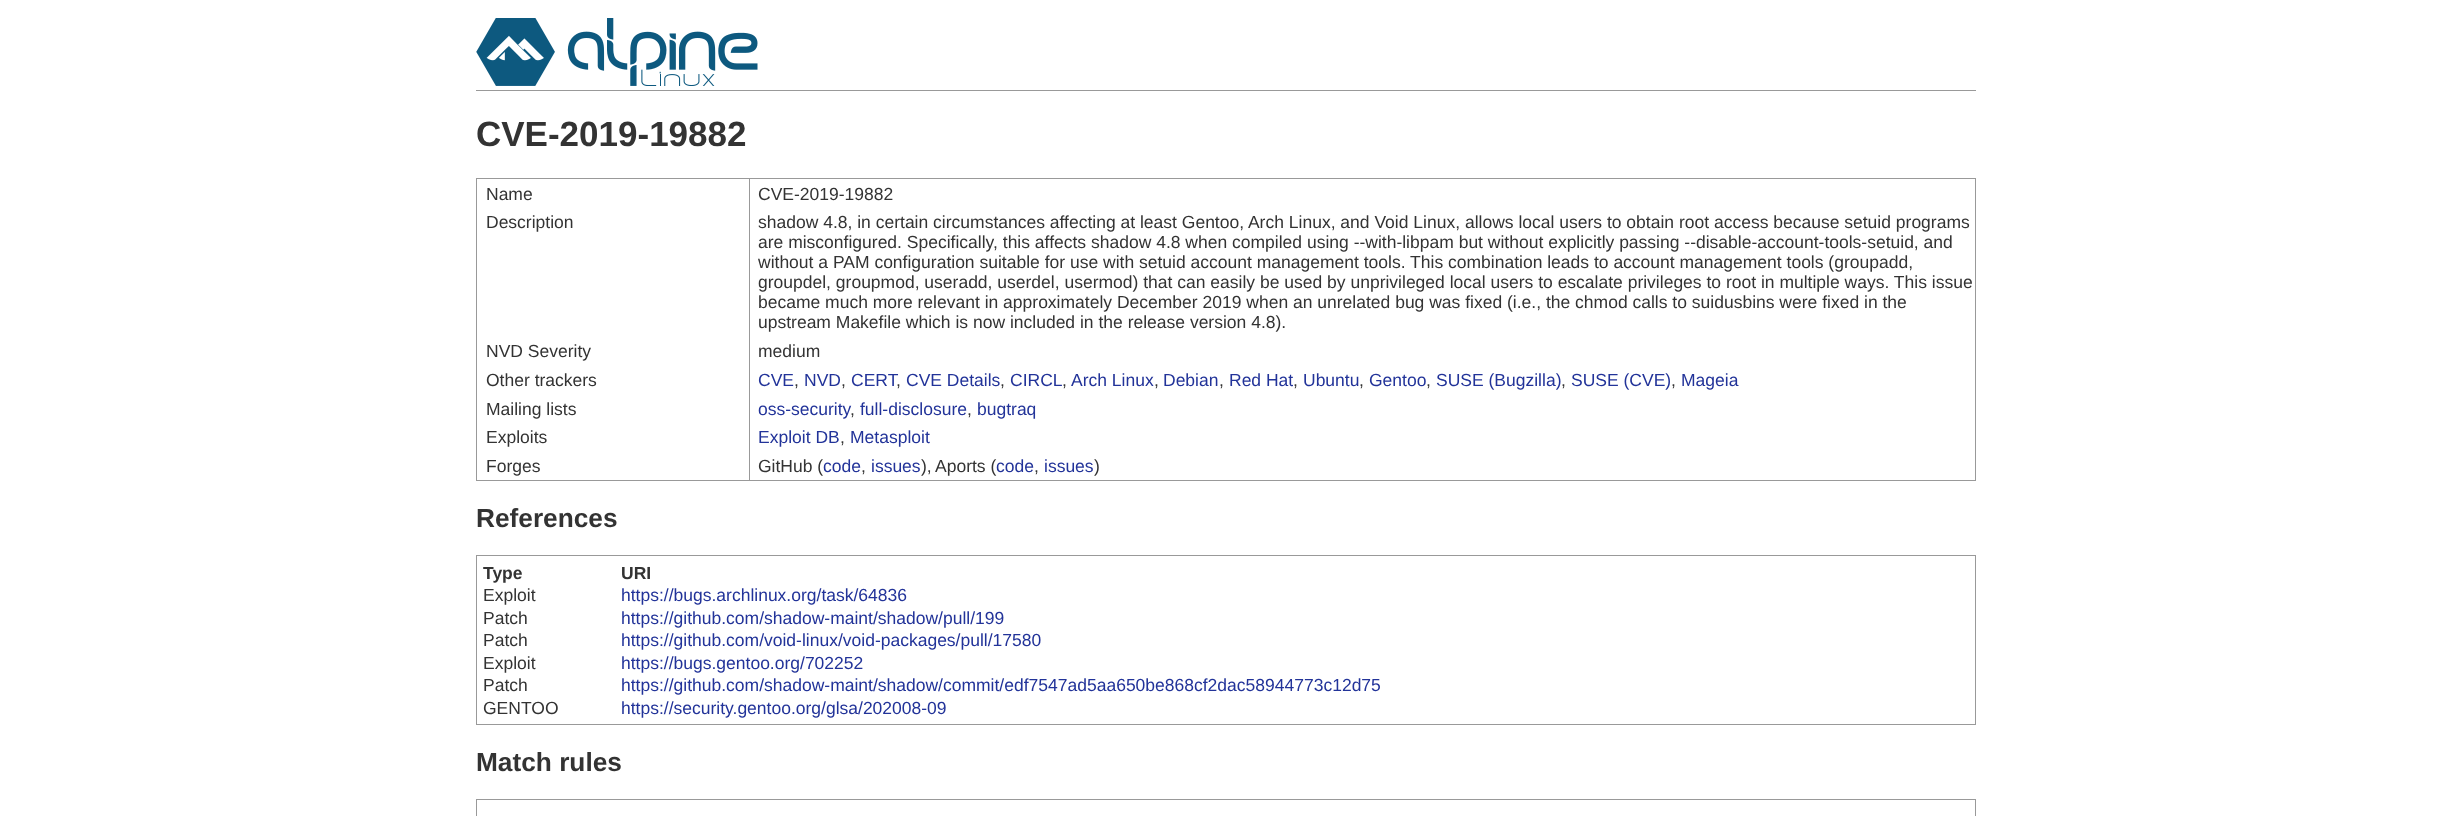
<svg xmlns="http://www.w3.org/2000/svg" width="2451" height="816">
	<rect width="100%" height="100%" fill="#FFFFFF" />
	<rect x="476" y="90" width="1500" height="1" fill="#999999" />
	<image x="476" y="18" width="282" height="68" href="assets/img1.png" />
	<text x="476" y="146" font-family="Liberation Sans" font-size="35" font-weight="700" fill="#333333">CVE-2019-19882</text>
	<rect x="476.5" y="178.5" width="1499" height="302" fill="none" stroke="#999999" />
	<text x="486" y="200" font-family="Liberation Sans" font-size="17.5" fill="#333333">Name</text>
	<rect x="749" y="179" width="1" height="301" fill="#999999" />
	<g font-family="Liberation Sans" font-size="17.5" fill="#333333">
		<text x="758" y="200">CVE-2019-19882</text>
		<text x="486" y="228">Description</text>
		<text x="758" y="228">shadow 4.8, in certain circumstances affecting at least Gentoo, Arch Linux, and Void Linux, allows local users to obtain root access because setuid programs</text>
		<text x="758" y="248">are misconfigured. Specifically, this affects shadow 4.8 when compiled using --with-libpam but without explicitly passing --disable-account-tools-setuid, and</text>
		<text x="758" y="268">without a PAM configuration suitable for use with setuid account management tools. This combination leads to account management tools (groupadd,</text>
		<text x="758" y="288">groupdel, groupmod, useradd, userdel, usermod) that can easily be used by unprivileged local users to escalate privileges to root in multiple ways. This issue</text>
		<text x="758" y="308">became much more relevant in approximately December 2019 when an unrelated bug was fixed (i.e., the chmod calls to suidusbins were fixed in the</text>
		<text x="758" y="328">upstream Makefile which is now included in the release version 4.8).</text>
		<text x="486" y="357">NVD Severity</text>
		<text x="758" y="357">medium</text>
		<text x="486" y="386">Other trackers</text>
	</g>
	<text x="758" y="386" font-family="Liberation Sans" font-size="17.5" fill="#223399">CVE</text>
	<text x="794" y="386" font-family="Liberation Sans" font-size="17.5" fill="#333333">,</text>
	<text x="804" y="386" font-family="Liberation Sans" font-size="17.5" fill="#223399">NVD</text>
	<text x="841" y="386" font-family="Liberation Sans" font-size="17.5" fill="#333333">,</text>
	<text x="851" y="386" font-family="Liberation Sans" font-size="17.5" fill="#223399">CERT</text>
	<text x="896" y="386" font-family="Liberation Sans" font-size="17.5" fill="#333333">,</text>
	<text x="906" y="386" font-family="Liberation Sans" font-size="17.5" fill="#223399">CVE Details</text>
	<text x="1000" y="386" font-family="Liberation Sans" font-size="17.5" fill="#333333">,</text>
	<text x="1010" y="386" font-family="Liberation Sans" font-size="17.5" fill="#223399">CIRCL</text>
	<text x="1062" y="386" font-family="Liberation Sans" font-size="17.5" fill="#333333">,</text>
	<text x="1071" y="386" font-family="Liberation Sans" font-size="17.5" fill="#223399">Arch Linux</text>
	<text x="1154" y="386" font-family="Liberation Sans" font-size="17.5" fill="#333333">,</text>
	<text x="1163" y="386" font-family="Liberation Sans" font-size="17.5" fill="#223399">Debian</text>
	<text x="1219" y="386" font-family="Liberation Sans" font-size="17.5" fill="#333333">,</text>
	<text x="1229" y="386" font-family="Liberation Sans" font-size="17.5" fill="#223399">Red Hat</text>
	<text x="1293" y="386" font-family="Liberation Sans" font-size="17.5" fill="#333333">,</text>
	<text x="1303" y="386" font-family="Liberation Sans" font-size="17.5" fill="#223399">Ubuntu</text>
	<text x="1359" y="386" font-family="Liberation Sans" font-size="17.5" fill="#333333">,</text>
	<text x="1369" y="386" font-family="Liberation Sans" font-size="17.5" fill="#223399">Gentoo</text>
	<text x="1426" y="386" font-family="Liberation Sans" font-size="17.5" fill="#333333">,</text>
	<text x="1436" y="386" font-family="Liberation Sans" font-size="17.5" fill="#223399">SUSE (Bugzilla)</text>
	<text x="1561" y="386" font-family="Liberation Sans" font-size="17.5" fill="#333333">,</text>
	<text x="1571" y="386" font-family="Liberation Sans" font-size="17.5" fill="#223399">SUSE (CVE)</text>
	<text x="1671" y="386" font-family="Liberation Sans" font-size="17.5" fill="#333333">,</text>
	<text x="1681" y="386" font-family="Liberation Sans" font-size="17.5" fill="#223399">Mageia</text>
	<text x="486" y="415" font-family="Liberation Sans" font-size="17.5" fill="#333333">Mailing lists</text>
	<text x="758" y="415" font-family="Liberation Sans" font-size="17.5" fill="#223399">oss-security</text>
	<text x="850" y="415" font-family="Liberation Sans" font-size="17.5" fill="#333333">,</text>
	<text x="860" y="415" font-family="Liberation Sans" font-size="17.5" fill="#223399">full-disclosure</text>
	<text x="967" y="415" font-family="Liberation Sans" font-size="17.5" fill="#333333">,</text>
	<text x="977" y="415" font-family="Liberation Sans" font-size="17.5" fill="#223399">bugtraq</text>
	<text x="486" y="443" font-family="Liberation Sans" font-size="17.5" fill="#333333">Exploits</text>
	<text x="758" y="443" font-family="Liberation Sans" font-size="17.5" fill="#223399">Exploit DB</text>
	<text x="840" y="443" font-family="Liberation Sans" font-size="17.5" fill="#333333">,</text>
	<text x="850" y="443" font-family="Liberation Sans" font-size="17.5" fill="#223399">Metasploit</text>
	<g font-family="Liberation Sans" font-size="17.5" fill="#333333">
		<text x="486" y="472">Forges</text>
		<text x="758" y="472">GitHub (</text>
	</g>
	<text x="823" y="472" font-family="Liberation Sans" font-size="17.5" fill="#223399">code</text>
	<text x="861" y="472" font-family="Liberation Sans" font-size="17.5" fill="#333333">,</text>
	<text x="871" y="472" font-family="Liberation Sans" font-size="17.5" fill="#223399">issues</text>
	<g font-family="Liberation Sans" font-size="17.5" fill="#333333">
		<text x="921" y="472">),</text>
		<text x="935" y="472">Aports (</text>
	</g>
	<text x="996" y="472" font-family="Liberation Sans" font-size="17.5" fill="#223399">code</text>
	<text x="1034" y="472" font-family="Liberation Sans" font-size="17.5" fill="#333333">,</text>
	<text x="1044" y="472" font-family="Liberation Sans" font-size="17.5" fill="#223399">issues</text>
	<text x="1094" y="472" font-family="Liberation Sans" font-size="17.5" fill="#333333">)</text>
	<text x="476" y="527" font-family="Liberation Sans" font-size="26.25" font-weight="700" fill="#333333">References</text>
	<rect x="476.5" y="555.5" width="1499" height="169" fill="none" stroke="#999999" />
	<g font-family="Liberation Sans" font-size="17.5" font-weight="700" fill="#333333">
		<text x="483" y="579">Type</text>
		<text x="621" y="579">URI</text>
	</g>
	<text x="483" y="601" font-family="Liberation Sans" font-size="17.5" fill="#333333">Exploit</text>
	<text x="621" y="601" font-family="Liberation Sans" font-size="17.5" fill="#223399">https://bugs.archlinux.org/task/64836</text>
	<text x="483" y="624" font-family="Liberation Sans" font-size="17.5" fill="#333333">Patch</text>
	<text x="621" y="624" font-family="Liberation Sans" font-size="17.5" fill="#223399">https://github.com/shadow-maint/shadow/pull/199</text>
	<text x="483" y="646" font-family="Liberation Sans" font-size="17.5" fill="#333333">Patch</text>
	<text x="621" y="646" font-family="Liberation Sans" font-size="17.5" fill="#223399">https://github.com/void-linux/void-packages/pull/17580</text>
	<text x="483" y="669" font-family="Liberation Sans" font-size="17.5" fill="#333333">Exploit</text>
	<text x="621" y="669" font-family="Liberation Sans" font-size="17.5" fill="#223399">https://bugs.gentoo.org/702252</text>
	<text x="483" y="691" font-family="Liberation Sans" font-size="17.5" fill="#333333">Patch</text>
	<text x="621" y="691" font-family="Liberation Sans" font-size="17.5" fill="#223399">https://github.com/shadow-maint/shadow/commit/edf7547ad5aa650be868cf2dac58944773c12d75</text>
	<text x="483" y="714" font-family="Liberation Sans" font-size="17.5" fill="#333333">GENTOO</text>
	<text x="621" y="714" font-family="Liberation Sans" font-size="17.5" fill="#223399">https://security.gentoo.org/glsa/202008-09</text>
	<text x="476" y="771" font-family="Liberation Sans" font-size="26.25" font-weight="700" fill="#333333">Match rules</text>
	<rect x="476.5" y="799.5" width="1499" height="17" fill="none" stroke="#999999" />
</svg>
